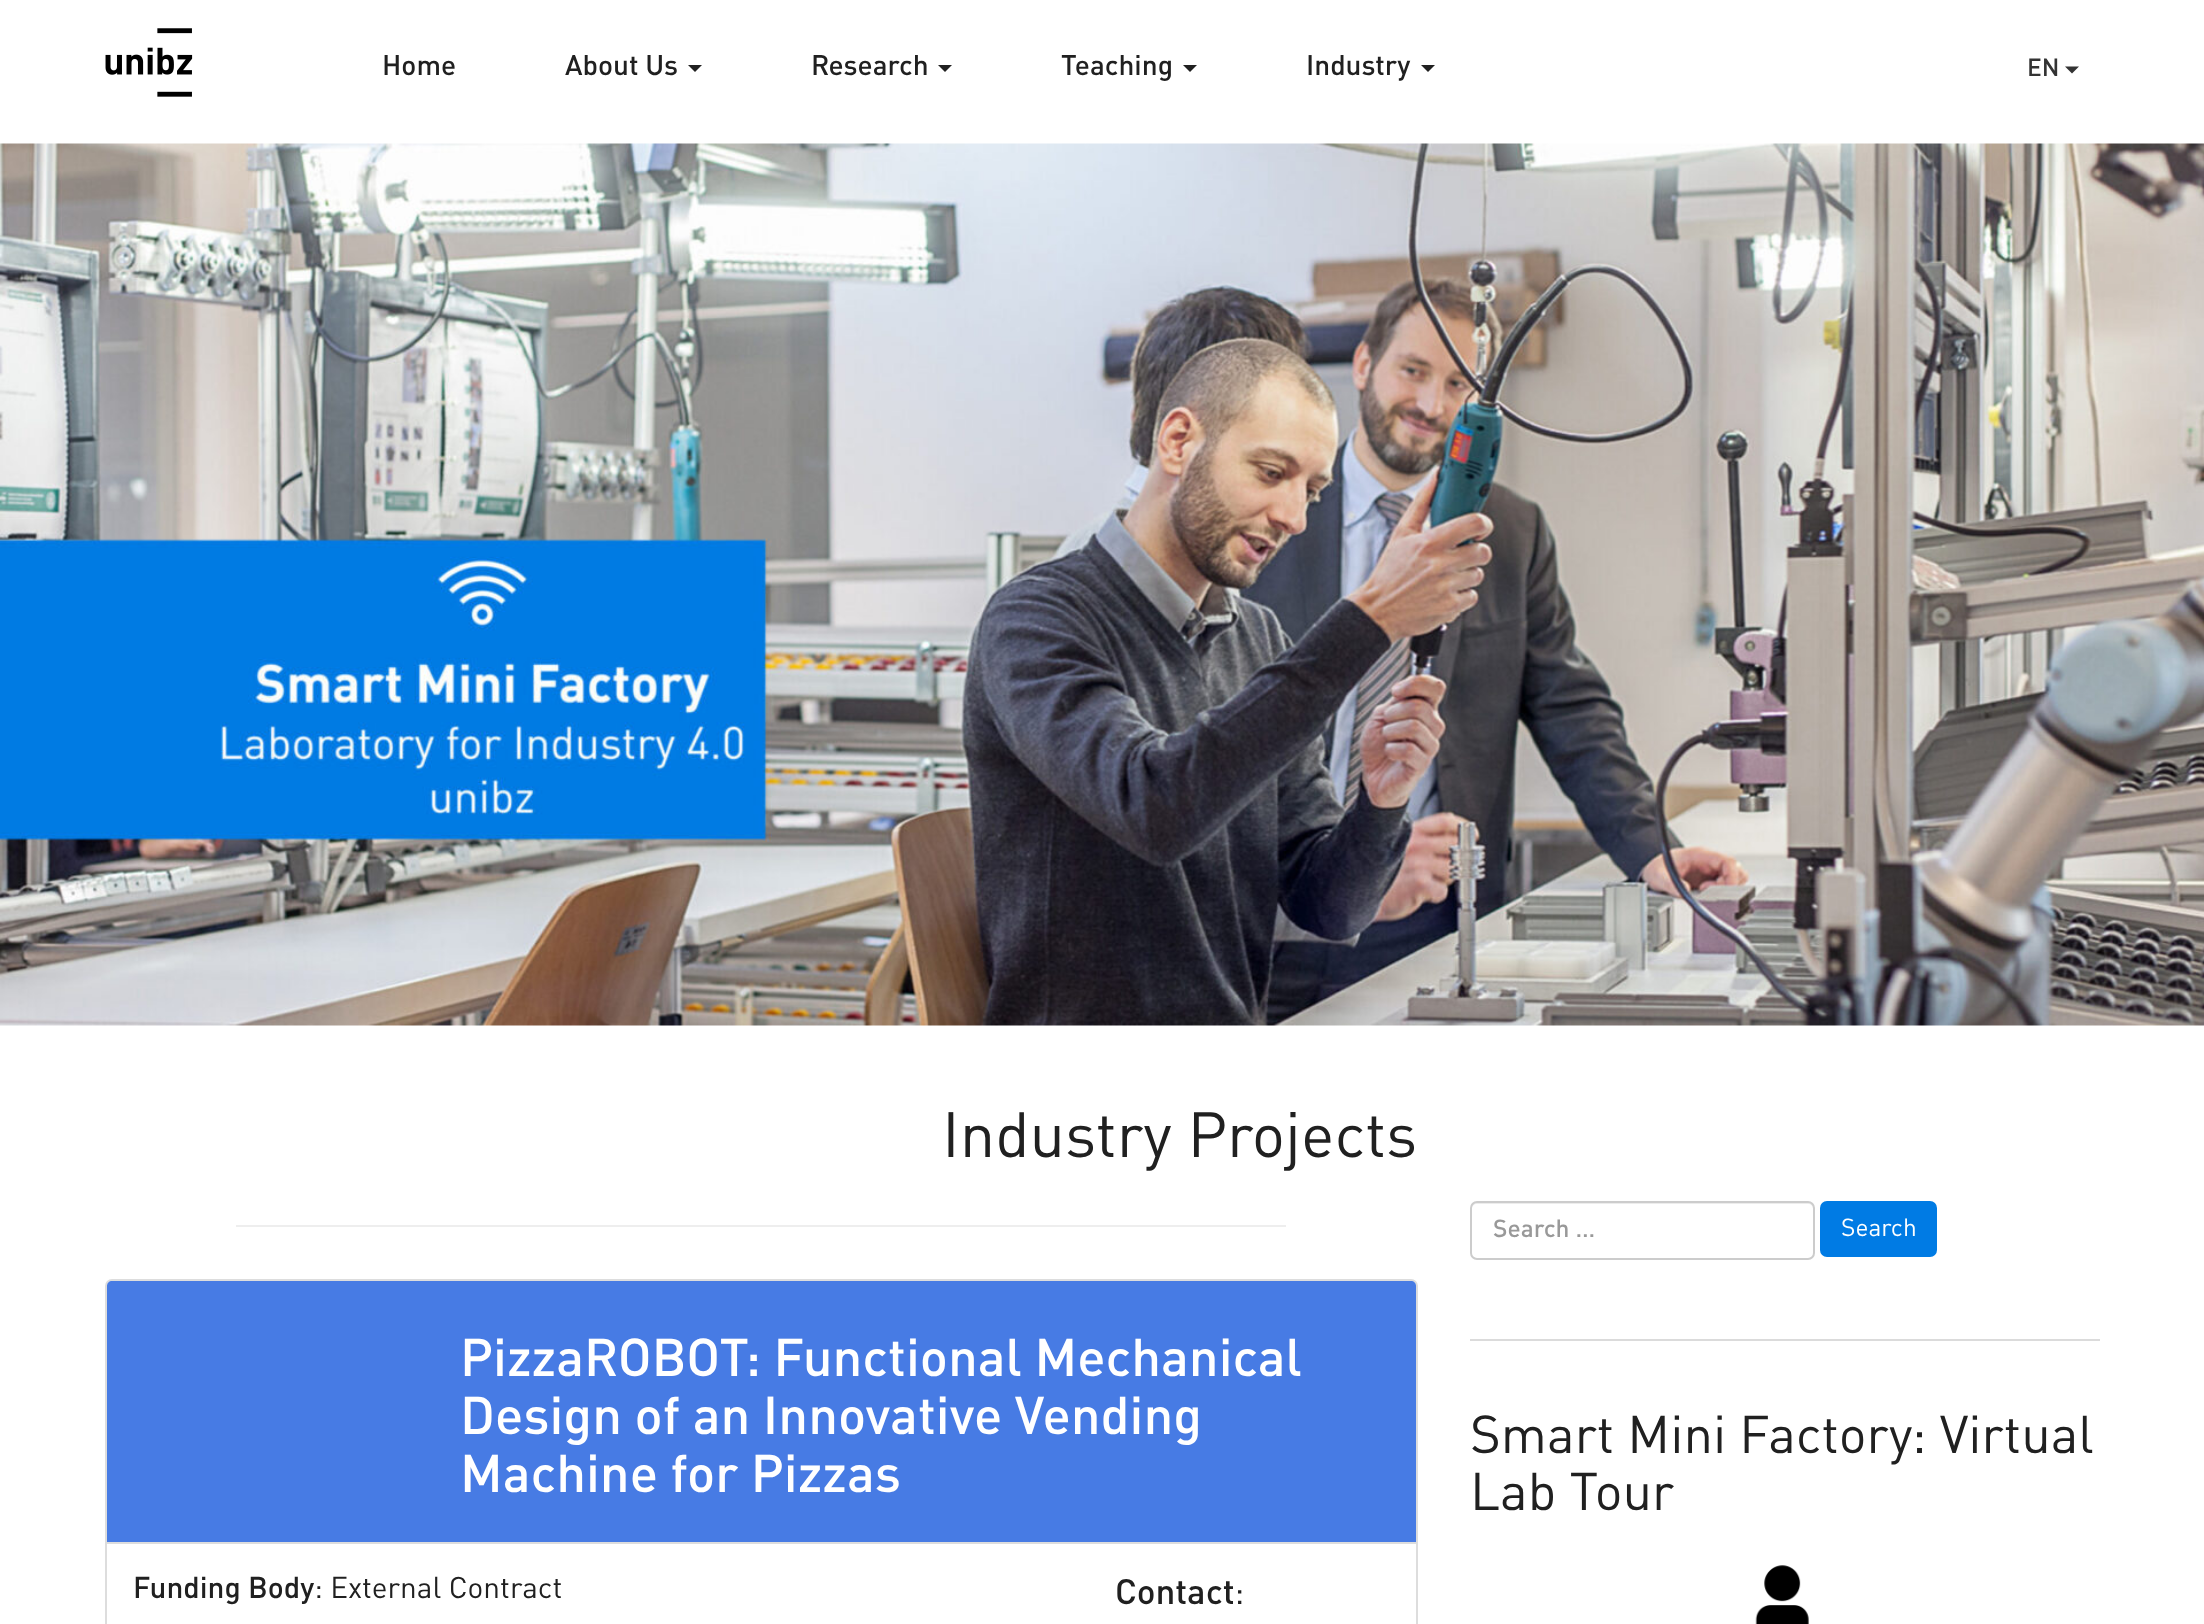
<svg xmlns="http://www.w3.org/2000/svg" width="2204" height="1624">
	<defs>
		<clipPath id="clip1"><path d="M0 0H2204V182H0ZM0 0H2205V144H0Z" clip-rule="evenodd" /></clipPath>
	</defs>
	<rect width="100%" height="100%" fill="#FFFFFF" />
	<g clip-path="url(#clip1)">
		<rect x="0" y="2" width="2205" height="143" fill="#000000" fill-opacity="0.2" filter="blur(12px)" />
	</g>
	<image x="105" y="28" width="88" height="69" href="assets/img1.png" />
	<g font-family="DIN" font-size="28" font-weight="500" fill="#202020">
		<text x="382" y="75">Home</text>
		<text x="565" y="75">About Us</text>
	</g>
	<path d="M688 65H702L695 72Z" fill="#202020" />
	<text x="811" y="75" font-family="DIN" font-size="28" font-weight="500" fill="#202020">Research</text>
	<path d="M938 65H952L945 72Z" fill="#202020" />
	<text x="1061" y="75" font-family="DIN" font-size="28" font-weight="500" fill="#202020">Teaching</text>
	<path d="M1183 65H1197L1190 72Z" fill="#202020" />
	<text x="1306" y="75" font-family="DIN" font-size="28" font-weight="500" fill="#202020">Industry</text>
	<path d="M1421 65H1435L1428 72Z" fill="#202020" />
	<text x="2027" y="76" font-family="DIN" font-size="24.5" font-weight="500" fill="#333333">EN</text>
	<path d="M2065 66.5H2079L2072 73.5Z" fill="#333333" />
	<image x="0" y="143" width="2204" height="883" href="assets/img2.png" />
	<text x="942" y="1157" font-family="DIN" font-size="63" fill="#202020">Industry Projects</text>
	<rect x="236" y="1225" width="1050" height="2" fill="#EEEEEE" />
	<rect x="106" y="1280" width="1311" height="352" rx="6" fill="none" stroke="#DDDDDD" stroke-width="2" />
	<path d="M112 1281H1411C1414 1281 1416 1283 1416 1286V1544H107V1286C107 1283 109 1281 112 1281Z" fill="#477BE4" />
	<rect x="107" y="1542" width="1309" height="2" fill="#DDDDDD" />
	<g font-family="DIN" font-size="52.5" font-weight="500" fill="#FFFFFF">
		<text x="460" y="1376">PizzaROBOT: Functional Mechanical</text>
		<text x="460" y="1434">Design of an Innovative Vending</text>
		<text x="460" y="1492">Machine for Pizzas</text>
	</g>
	<text x="133" y="1598" font-family="DIN" font-size="29.75" font-weight="500" fill="#202020">Funding Body</text>
	<text x="314" y="1598" font-family="DIN" font-size="29.75" fill="#202020">: External Contract</text>
	<text x="1115" y="1604" font-family="DIN" font-size="35" font-weight="500" fill="#202020">Contact</text>
	<text x="1234" y="1604" font-family="DIN" font-size="35" fill="#202020">:</text>
	<path d="M1477 1204H1808C1811 1204 1813 1206 1813 1209V1207C1813 1204 1811 1202 1808 1202H1477C1474 1202 1472 1204 1472 1207V1209C1472 1206 1474 1204 1477 1204Z" fill="#ECECEC" />
	<rect x="1471" y="1202" width="343" height="57" rx="6" fill="none" stroke="#CCCCCC" stroke-width="2" />
	<text x="1493" y="1237" font-family="DIN" font-size="24.5" font-weight="500" fill="#999999">Search …</text>
	<rect x="1820" y="1201" width="117" height="56" rx="7" fill="#007BE4" />
	<text x="1841" y="1236" font-family="DIN" font-size="24.5" fill="#FFFFFF">Search</text>
	<rect x="1470" y="1339" width="630" height="2" fill="#DBDBDB" />
	<g font-family="DIN" font-size="52.5" fill="#202020">
		<text x="1470" y="1453">Smart Mini Factory: Virtual</text>
		<text x="1470" y="1510">Lab Tour</text>
	</g>
	<image x="1755" y="1565" width="54" height="59" href="assets/img3.png" />
</svg>
